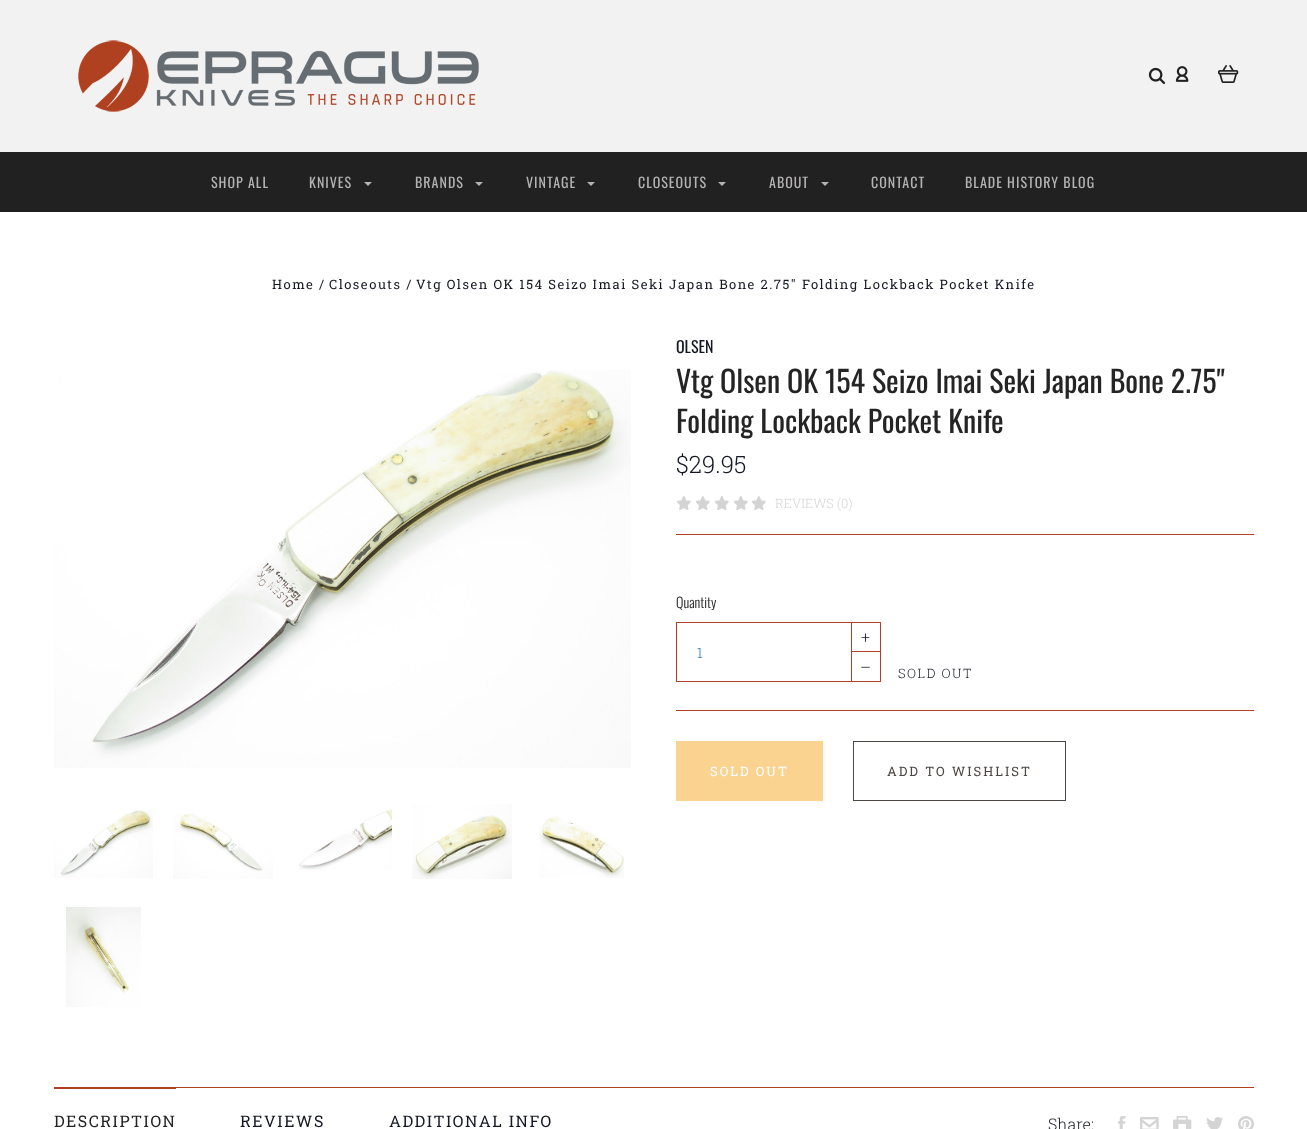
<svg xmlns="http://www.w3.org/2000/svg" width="1307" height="1129">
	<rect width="100%" height="100%" fill="#FFFFFF" />
	<rect x="0" y="0" width="1307" height="152" fill="#F2F2F2" />
	<image x="78" y="40" width="401" height="72" href="assets/img1.png" />
	<image x="1148" y="67" width="18" height="18" href="assets/img2.png" />
	<image x="1175" y="66" width="14" height="16" href="assets/img3.png" />
	<image x="1218" y="65" width="21" height="18" href="assets/img4.png" />
	<rect x="0" y="152" width="1307" height="60" fill="#212121" />
	<g font-family="Oswald" font-size="14" letter-spacing="1" fill="#B4B2B2">
		<text x="211" y="188">SHOP ALL</text>
		<text x="309" y="188">KNIVES</text>
	</g>
	<path d="M364 182H372L368 186Z" fill="#B4B2B2" />
	<text x="415" y="188" font-family="Oswald" font-size="14" letter-spacing="1" fill="#B4B2B2">BRANDS</text>
	<path d="M475 182H483L479 186Z" fill="#B4B2B2" />
	<text x="526" y="188" font-family="Oswald" font-size="14" letter-spacing="1" fill="#B4B2B2">VINTAGE</text>
	<path d="M587 182H595L591 186Z" fill="#B4B2B2" />
	<text x="638" y="188" font-family="Oswald" font-size="14" letter-spacing="1" fill="#B4B2B2">CLOSEOUTS</text>
	<path d="M718 182H726L722 186Z" fill="#B4B2B2" />
	<text x="769" y="188" font-family="Oswald" font-size="14" letter-spacing="1" fill="#B4B2B2">ABOUT</text>
	<path d="M821 182H829L825 186Z" fill="#B4B2B2" />
	<g font-family="Oswald" font-size="14" letter-spacing="1" fill="#B4B2B2">
		<text x="871" y="188">CONTACT</text>
		<text x="965" y="188">BLADE HISTORY BLOG</text>
	</g>
	<g font-family="Roboto Slab" font-size="13" letter-spacing="1.5" fill="#141823">
		<text x="272" y="289">Home /</text>
		<text x="329" y="289">Closeouts /</text>
		<text x="416" y="289">Vtg Olsen OK 154 Seizo Imai Seki Japan Bone 2.75" Folding Lockback Pocket Knife</text>
	</g>
	<image x="54" y="370" width="577" height="398" href="assets/img5.png" />
	<image x="54" y="810" width="99" height="68" href="assets/img6.png" />
	<image x="173" y="813" width="100" height="66" href="assets/img7.png" />
	<image x="298" y="809" width="94" height="61" href="assets/img8.png" />
	<image x="412" y="804" width="100" height="75" href="assets/img9.png" />
	<image x="539" y="816" width="85" height="62" href="assets/img10.png" />
	<image x="66" y="907" width="75" height="100" href="assets/img11.png" />
	<text x="676" y="353" font-family="Oswald" font-size="16" fill="#141823">OLSEN</text>
	<g font-family="Oswald" font-size="30" fill="#242424">
		<text x="676" y="393">Vtg Olsen OK 154 Seizo Imai Seki Japan Bone 2.75"</text>
		<text x="676" y="433">Folding Lockback Pocket Knife</text>
	</g>
	<text x="676" y="473" font-family="Roboto Slab" font-size="24" font-weight="300" fill="#141823">$29.95</text>
	<image x="676" y="496" width="15" height="14" href="assets/img12.png" />
	<image x="695" y="496" width="15" height="14" href="assets/img12.png" />
	<image x="714" y="496" width="15" height="14" href="assets/img12.png" />
	<image x="733" y="496" width="15" height="14" href="assets/img12.png" />
	<image x="751" y="496" width="15" height="14" href="assets/img12.png" />
	<text x="775" y="508" font-family="Roboto Slab" font-size="13" font-weight="300" fill="#D4D4D4">REVIEWS (0)</text>
	<rect x="676" y="534" width="578" height="1" fill="#AF4022" />
	<text x="676" y="608" font-family="Oswald" font-size="14" font-weight="300" fill="#242424">Quantity</text>
	<rect x="851.5" y="622.5" width="29" height="29" fill="none" stroke="#AF4022" />
	<text x="861" y="643" font-family="Roboto Slab" font-size="16" font-weight="300" fill="#141823">+</text>
	<rect x="676" y="622" width="175" height="1" fill="#AF4022" />
	<rect x="676" y="681" width="175" height="1" fill="#AF4022" />
	<rect x="676" y="622" width="1" height="60" fill="#AF4022" />
	<text x="697" y="658" font-family="Roboto Slab" font-size="14" font-weight="300" fill="#1E73BE">1</text>
	<rect x="880" y="652" width="1" height="30" fill="#AF4022" />
	<rect x="851" y="681" width="30" height="1" fill="#AF4022" />
	<rect x="851" y="652" width="1" height="30" fill="#AF4022" />
	<text x="860" y="673" font-family="Roboto Slab" font-size="16" font-weight="300" fill="#141823">–</text>
	<text x="898" y="678" font-family="Roboto Slab" font-size="13" font-weight="300" letter-spacing="1.5" fill="#141823">SOLD OUT</text>
	<rect x="676" y="710" width="578" height="1" fill="#AF4022" />
	<rect x="676" y="741" width="147" height="60" fill="#FAD391" />
	<text x="710" y="776" font-family="Roboto Slab" font-size="13" letter-spacing="2" fill="#FFFFFF">SOLD OUT</text>
	<rect x="853.5" y="741.5" width="212" height="59" fill="none" stroke="#4D4744" />
	<text x="887" y="776" font-family="Roboto Slab" font-size="13" letter-spacing="2" fill="#4D4744">ADD TO WISHLIST</text>
	<rect x="176" y="1087" width="1078" height="1" fill="#AF4022" />
	<rect x="54" y="1087" width="122" height="2" fill="#AF4022" />
	<text x="54" y="1127" font-family="Roboto Slab" font-size="16" letter-spacing="1.5" fill="#242424">DESCRIPTION</text>
	<g font-family="Roboto Slab" font-size="16" letter-spacing="1.5" fill="#141823">
		<text x="240" y="1127">REVIEWS</text>
		<text x="389" y="1127">ADDITIONAL INFO</text>
	</g>
	<text x="1048" y="1130" font-family="Roboto Slab" font-size="16" font-weight="300" fill="#141823">Share:</text>
	<image x="1118" y="1116" width="8" height="13" href="assets/img13.png" />
	<image x="1140" y="1117" width="19" height="12" href="assets/img14.png" />
	<image x="1173" y="1116" width="19" height="13" href="assets/img15.png" />
	<image x="1206" y="1117" width="17" height="12" href="assets/img16.png" />
	<image x="1238" y="1116" width="16" height="13" href="assets/img17.png" />
</svg>
